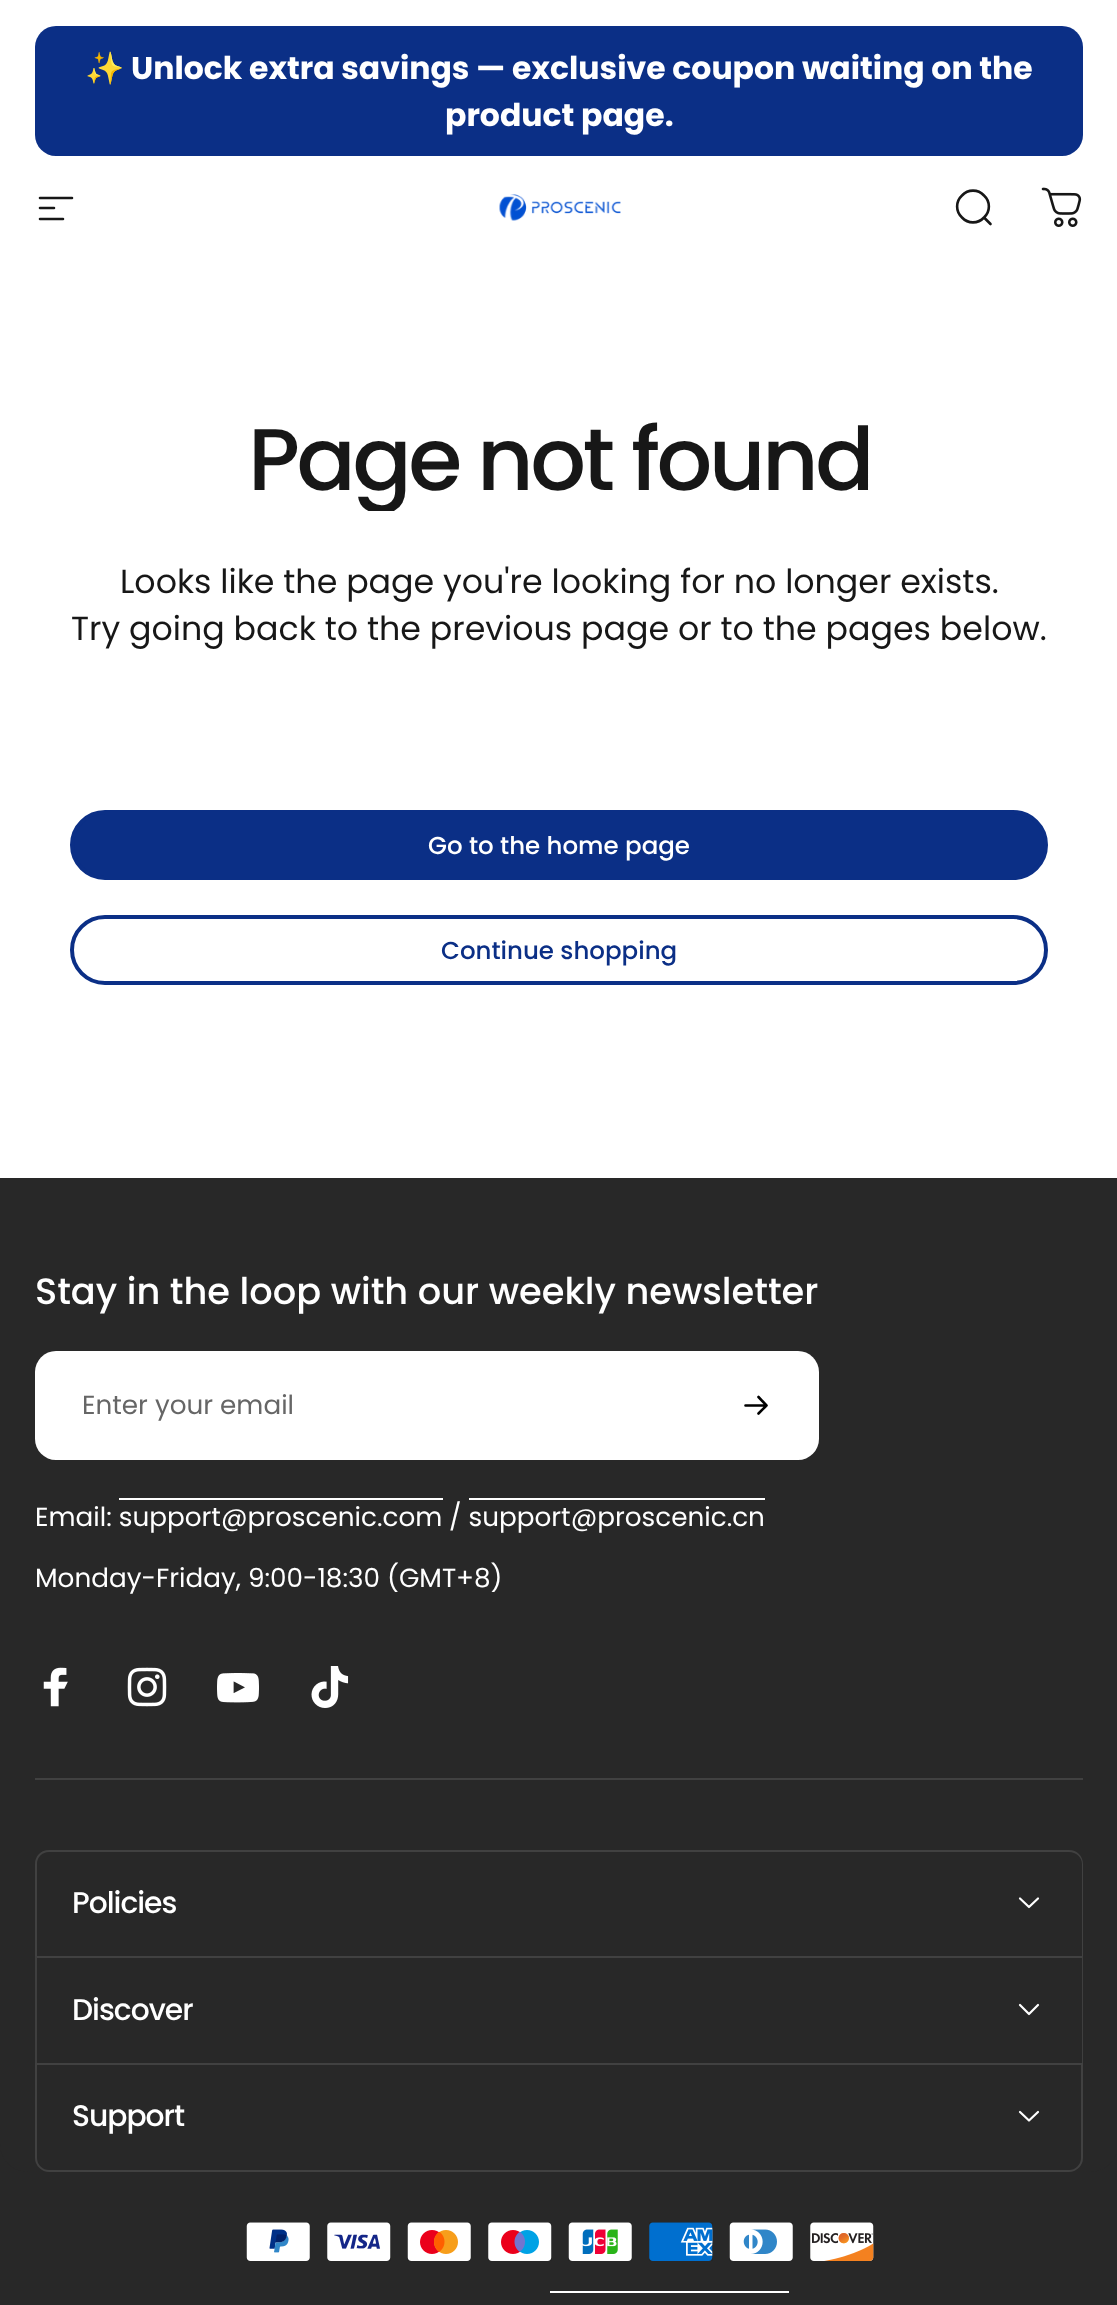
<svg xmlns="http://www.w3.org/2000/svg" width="1117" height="2305">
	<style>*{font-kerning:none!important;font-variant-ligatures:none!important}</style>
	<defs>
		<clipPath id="clip1"><rect x="243" y="410" width="219" height="101" /></clipPath>
	</defs>
	<rect width="100%" height="100%" fill="#FFFFFF" />
	<rect x="35" y="26" width="1048" height="130" rx="21" fill="#0B2F86" />
	<text x="85" y="79" font-family="Noto Color Emoji" font-size="31.5" font-weight="700" fill="#FFFFFF">✨</text>
	<g font-family="Poppins" font-size="31.5" font-weight="700" fill="#FFFFFF">
		<text x="131" y="79">Unlock extra savings — exclusive coupon waiting on the</text>
		<text x="445" y="126">product page.</text>
	</g>
	<path d="M40 198H72M40 208H54M40 219H63" fill="none" stroke="#171717" stroke-width="2.6" stroke-linecap="round" />
	<image x="499" y="194" width="122" height="27" href="assets/img1.png" />
	<path d="M990.5 224L984 217.5M984 217.5C990.5 211.5 990.5 201.5 984 195.5C978 189 968 189 962 195.5C955.5 201.5 955.5 211.5 962 217.5C968 224 978 224 984 217.5Z" fill="none" stroke="#171717" stroke-width="2.6" stroke-linecap="round" />
	<image x="1041" y="187" width="41" height="40" href="assets/img2.png" />
	<g clip-path="url(#clip1)">
		<text x="248" y="490" font-family="Poppins" font-size="87.5" font-weight="500" letter-spacing="-3.5" fill="#171717">Page</text>
	</g>
	<text x="477" y="490" font-family="Poppins" font-size="87.5" font-weight="500" letter-spacing="-3.5" fill="#171717">not found</text>
	<g font-family="Poppins" font-size="33.25" fill="#171717">
		<text x="120" y="593">Looks like the page you're looking for no longer exists.</text>
		<text x="71" y="640">Try going back to the previous page or to the pages below.</text>
	</g>
	<rect x="72" y="812" width="974" height="66" rx="33" fill="#0B2F86" stroke="#0B2F86" stroke-width="4" />
	<text x="428" y="854" font-family="Poppins" font-size="24.5" font-weight="500" fill="#FFFFFF">Go to the home page</text>
	<rect x="72" y="917" width="974" height="66" rx="33" fill="none" stroke="#0B2F86" stroke-width="4" />
	<text x="441" y="959" font-family="Poppins" font-size="24.5" font-weight="500" fill="#0B2F86">Continue shopping</text>
	<rect x="0" y="2144" width="1117" height="161" fill="#282828" />
	<path d="M0 1178H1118V2144C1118 2159.5 1105.5 2172 1090 2172H28C12.5 2172 0 2159.5 0 2144Z" fill="#282828" />
	<rect x="35" y="1778" width="1048" height="2" fill="#414141" />
	<text x="35" y="1304" font-family="Poppins" font-size="36.75" font-weight="500" fill="#FFFFFF">Stay in the loop with our weekly newsletter</text>
	<rect x="35" y="1351" width="784" height="109" rx="21" fill="#FFFFFF" />
	<text x="82" y="1414" font-family="Poppins" font-size="26.25" fill="#666666">Enter your email</text>
	<path d="M745.5 1405.5H766.5M766.5 1405.5L758.5 1397M766.5 1405.5L758.5 1413.5" fill="none" stroke="#000000" stroke-width="2.6" stroke-linecap="round" stroke-linejoin="round" />
	<rect x="119" y="1498" width="324" height="2" fill="#FFFFFF" />
	<rect x="469" y="1498" width="296" height="2" fill="#FFFFFF" />
	<g font-family="Poppins" font-size="26.25" fill="#FFFFFF">
		<text x="35" y="1526">Email: support@proscenic.com</text>
		<text x="449" y="1526">/ support@proscenic.cn</text>
		<text x="35" y="1587">Monday-Friday, 9:00-18:30 (GMT+8)</text>
	</g>
	<image x="43" y="1667" width="25" height="40" href="assets/img3.png" />
	<image x="127" y="1667" width="40" height="40" href="assets/img4.png" />
	<image x="217" y="1673" width="42" height="30" href="assets/img5.png" />
	<image x="311" y="1666" width="38" height="42" href="assets/img6.png" />
	<path d="M49 1850H1069C1077 1850 1083 1856 1083 1864V1956H35V1864C35 1856 41 1850 49 1850ZM49 1852H1069C1076 1852 1082 1857 1082 1864V1956H37V1864C37 1857 42 1852 49 1852Z" fill="#414141" fill-rule="evenodd" />
	<text x="72" y="1913" font-family="Poppins" font-size="29.75" font-weight="500" letter-spacing="-1" fill="#FFFFFF">Policies</text>
	<path d="M1020 1898.5L1029 1907L1038 1898.5" fill="none" stroke="#FFFFFF" stroke-width="2.2" stroke-linecap="round" stroke-linejoin="round" />
	<path d="M35 1956H1083L1082 1958H37Z" fill="#414141" />
	<path d="M1083 1956V2063H1082V1958Z" fill="#FFFFFF" fill-opacity="0.11" />
	<path d="M35 2063V1956L37 1958V2063Z" fill="#FFFFFF" fill-opacity="0.11" />
	<text x="72" y="2020" font-family="Poppins" font-size="29.75" font-weight="500" letter-spacing="-1" fill="#FFFFFF">Discover</text>
	<path d="M1020 2005L1029 2014L1038 2005" fill="none" stroke="#FFFFFF" stroke-width="2.2" stroke-linecap="round" stroke-linejoin="round" />
	<path d="M36 2064H1082V2158C1082 2165 1076 2171 1069 2171H49C42 2171 36 2165 36 2158Z" fill="none" stroke="#414141" stroke-width="2" />
	<text x="72" y="2126" font-family="Poppins" font-size="29.75" font-weight="500" letter-spacing="-1" fill="#FFFFFF">Support</text>
	<path d="M1020 2112L1029 2120.5L1038 2112" fill="none" stroke="#FFFFFF" stroke-width="2.2" stroke-linecap="round" stroke-linejoin="round" />
	<image x="246" y="2222" width="64" height="39" href="assets/img7.png" />
	<image x="327" y="2222" width="64" height="39" href="assets/img8.png" />
	<image x="407" y="2222" width="64" height="39" href="assets/img9.png" />
	<image x="488" y="2222" width="64" height="39" href="assets/img10.png" />
	<image x="568" y="2222" width="64" height="39" href="assets/img11.png" />
	<image x="649" y="2222" width="64" height="39" href="assets/img12.png" />
	<image x="729" y="2222" width="64" height="39" href="assets/img13.png" />
	<image x="810" y="2222" width="64" height="39" href="assets/img14.png" />
	<rect x="550" y="2291" width="239" height="2" fill="#FFFFFF" />
</svg>
